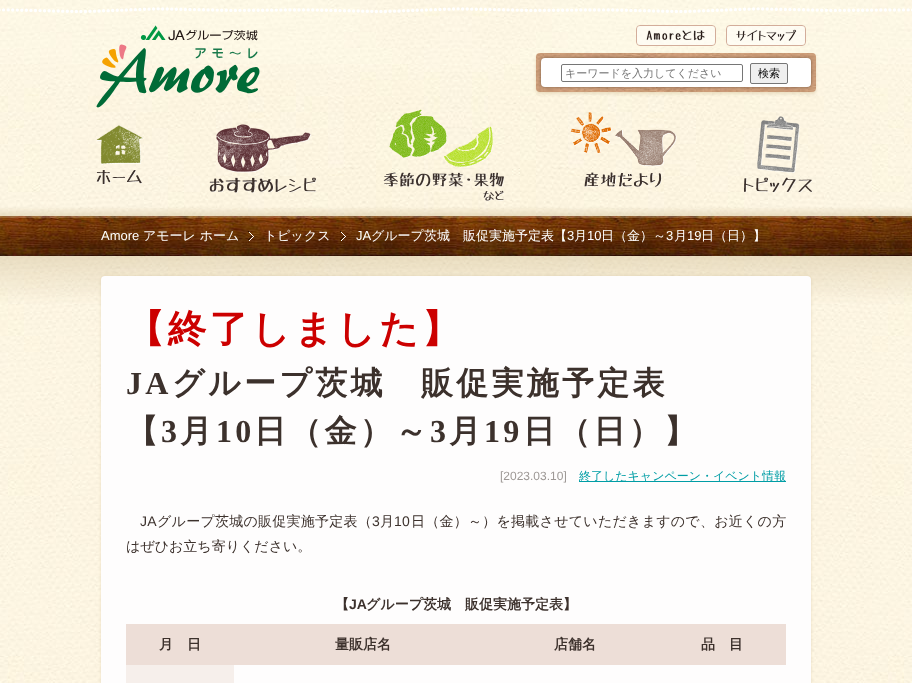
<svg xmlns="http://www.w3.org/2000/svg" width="912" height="683">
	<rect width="100%" height="100%" fill="#FFFFFF" />
	<image x="0" y="0" width="912" height="683" href="assets/img1.png" />
	<image x="0" y="7" width="912" height="7" href="assets/img2.png" />
	<image x="96" y="25" width="164" height="83" href="assets/img3.png" />
	<rect x="636.5" y="25.5" width="79" height="20" rx="3.5" fill="none" stroke="#D3AD9A" />
	<image x="637" y="26" width="78" height="19" href="assets/img4.png" />
	<rect x="726.5" y="25.5" width="79" height="20" rx="3.5" fill="none" stroke="#D3AD9A" />
	<image x="727" y="26" width="78" height="19" href="assets/img5.png" />
	<image x="96" y="125" width="48" height="60" href="assets/img6.png" />
	<image x="209" y="124" width="108" height="69" href="assets/img7.png" />
	<image x="383" y="109" width="122" height="92" href="assets/img8.png" />
	<image x="570" y="112" width="107" height="75" href="assets/img9.png" />
	<image x="744" y="116" width="69" height="77" href="assets/img10.png" />
	<rect x="536" y="55" width="280" height="39" rx="4" fill="#CCB88F" fill-opacity="0.4" filter="blur(1.5px)" />
	<image x="536" y="53" width="280" height="39" href="assets/img11.png" />
	<rect x="541" y="58" width="270" height="29" rx="4" fill="#000000" fill-opacity="0.2" filter="blur(1.5px)" />
	<rect x="541" y="58" width="270" height="29" rx="4" fill="#000000" fill-opacity="0.2" filter="blur(1.5px)" />
	<rect x="541" y="58" width="270" height="29" rx="4" fill="#FFFFFF" />
	<rect x="561.5" y="64.5" width="181" height="17" rx="1.5" fill="none" stroke="#767676" />
	<text x="565" y="77" font-family="WenQuanYi Zen Hei" font-size="11" font-weight="500" fill="#757575">キーワードを入力してください</text>
	<rect x="750.5" y="63.5" width="37" height="20" rx="1.5" fill="#EFEFEF" stroke="#767676" />
	<text x="758" y="77" font-family="WenQuanYi Zen Hei" font-size="11" font-weight="500" fill="#000000">検索</text>
	<image x="0" y="216" width="912" height="40" href="assets/img12.png" />
	<text x="101" y="240" font-family="Liberation Sans" font-size="13" fill="#FFFFFF">Amore</text>
	<text x="143" y="240" font-family="WenQuanYi Zen Hei" font-size="13" font-weight="500" fill="#FFFFFF">アモーレ ホーム</text>
	<image x="248" y="231" width="6" height="10" href="assets/img13.png" />
	<text x="264" y="240" font-family="WenQuanYi Zen Hei" font-size="13" font-weight="500" fill="#FFFFFF">トピックス</text>
	<image x="340" y="231" width="6" height="10" href="assets/img14.png" />
	<text x="356" y="240" font-family="Liberation Sans" font-size="13" fill="#FFFFFF">JA</text>
	<text x="371" y="240" font-family="WenQuanYi Zen Hei" font-size="13" font-weight="500" fill="#FFFFFF">グループ茨城　販促実施予定表【</text>
	<text x="567" y="240" font-family="Liberation Sans" font-size="13" fill="#FFFFFF">3</text>
	<text x="574" y="240" font-family="WenQuanYi Zen Hei" font-size="13" font-weight="500" fill="#FFFFFF">月</text>
	<text x="587" y="240" font-family="Liberation Sans" font-size="13" fill="#FFFFFF">10</text>
	<text x="601" y="240" font-family="WenQuanYi Zen Hei" font-size="13" font-weight="500" fill="#FFFFFF">日（金）～</text>
	<text x="666" y="240" font-family="Liberation Sans" font-size="13" fill="#FFFFFF">3</text>
	<text x="674" y="240" font-family="WenQuanYi Zen Hei" font-size="13" font-weight="500" fill="#FFFFFF">月</text>
	<text x="687" y="240" font-family="Liberation Sans" font-size="13" fill="#FFFFFF">19</text>
	<text x="701" y="240" font-family="WenQuanYi Zen Hei" font-size="13" font-weight="500" fill="#FFFFFF">日（日）】</text>
	<rect x="101" y="276" width="710" height="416" rx="4" fill="#CCB88F" fill-opacity="0.4" filter="blur(1.5px)" />
	<rect x="101" y="276" width="710" height="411" rx="4" fill="#FEFDFD" />
	<text x="126" y="342" font-family="WenQuanYi Zen Hei" font-size="38.5" font-weight="700" letter-spacing="3.25" fill="#CC0000">【終了しました】</text>
	<text x="126" y="394" font-family="Liberation Serif" font-size="32" font-weight="700" letter-spacing="3.25" fill="#3C312C">JA</text>
	<g font-family="WenQuanYi Zen Hei" font-size="32" font-weight="700" letter-spacing="3.25" fill="#3C312C">
		<text x="172" y="394">グループ茨城　販促実施予定表</text>
		<text x="126" y="442">【</text>
	</g>
	<text x="161" y="442" font-family="Liberation Serif" font-size="32" font-weight="700" letter-spacing="3.25" fill="#3C312C">3</text>
	<text x="180" y="442" font-family="WenQuanYi Zen Hei" font-size="32" font-weight="700" letter-spacing="3.25" fill="#3C312C">月</text>
	<text x="216" y="442" font-family="Liberation Serif" font-size="32" font-weight="700" letter-spacing="3.25" fill="#3C312C">10</text>
	<text x="254" y="442" font-family="WenQuanYi Zen Hei" font-size="32" font-weight="700" letter-spacing="3.25" fill="#3C312C">日（金）～</text>
	<text x="430" y="442" font-family="Liberation Serif" font-size="32" font-weight="700" letter-spacing="3.25" fill="#3C312C">3</text>
	<text x="449" y="442" font-family="WenQuanYi Zen Hei" font-size="32" font-weight="700" letter-spacing="3.25" fill="#3C312C">月</text>
	<text x="484" y="442" font-family="Liberation Serif" font-size="32" font-weight="700" letter-spacing="3.25" fill="#3C312C">19</text>
	<text x="523" y="442" font-family="WenQuanYi Zen Hei" font-size="32" font-weight="700" letter-spacing="3.25" fill="#3C312C">日（日）】</text>
	<text x="500" y="480" font-family="Liberation Sans" font-size="12" fill="#9D9895">[2023.03.10]</text>
	<rect x="579" y="481" width="207" height="1" fill="#009DA5" />
	<text x="579" y="480" font-family="WenQuanYi Zen Hei" font-size="12" font-weight="500" fill="#009DA5">終了したキャンペーン・イベント情報</text>
	<text x="140" y="526" font-family="Liberation Sans" font-size="14" letter-spacing="0.25" fill="#3C312C">JA</text>
	<text x="157" y="526" font-family="WenQuanYi Zen Hei" font-size="14" font-weight="500" letter-spacing="0.25" fill="#3C312C">グループ茨城の販促実施予定表（</text>
	<text x="372" y="526" font-family="Liberation Sans" font-size="14" letter-spacing="0.25" fill="#3C312C">3</text>
	<text x="380" y="526" font-family="WenQuanYi Zen Hei" font-size="14" font-weight="500" letter-spacing="0.25" fill="#3C312C">月</text>
	<text x="394" y="526" font-family="Liberation Sans" font-size="14" letter-spacing="0.25" fill="#3C312C">10</text>
	<text x="411" y="526" font-family="WenQuanYi Zen Hei" font-size="14" font-weight="500" letter-spacing="0.25" fill="#3C312C">日（金）～）を掲載させていただきますので、お近くの方</text>
	<text x="126" y="551" font-family="WenQuanYi Zen Hei" font-size="14" font-weight="500" fill="#3C312C">はぜひお立ち寄りください。</text>
	<text x="335" y="609" font-family="WenQuanYi Zen Hei" font-size="14" font-weight="700" fill="#3C312C">【</text>
	<text x="349" y="609" font-family="Liberation Sans" font-size="14" font-weight="700" fill="#3C312C">JA</text>
	<text x="366" y="609" font-family="WenQuanYi Zen Hei" font-size="14" font-weight="700" fill="#3C312C">グループ茨城　販促実施予定表】</text>
	<rect x="126" y="624" width="660" height="40" fill="#EDDED7" />
	<g font-family="WenQuanYi Zen Hei" font-size="14" font-weight="700" fill="#3C312C">
		<text x="159" y="649">月　日</text>
		<text x="335" y="649">量販店名</text>
		<text x="554" y="649">店舗名</text>
		<text x="701" y="649">品　目</text>
	</g>
	<rect x="126" y="665" width="108" height="18" fill="#F6EFEB" />
	<rect x="126" y="664" width="660" height="1" fill="#EDDED7" />
</svg>
